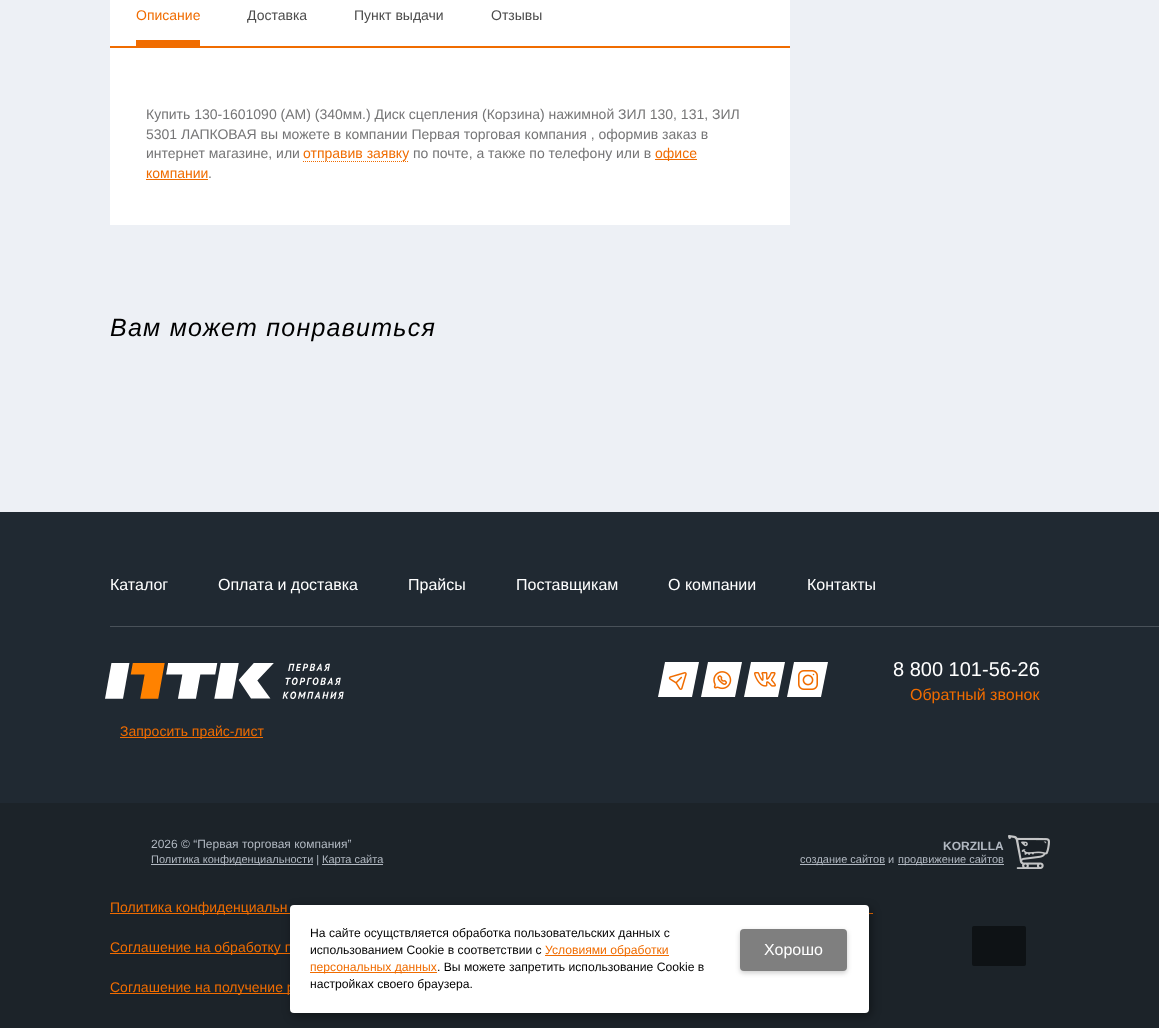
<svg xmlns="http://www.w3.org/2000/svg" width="1159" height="1028">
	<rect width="100%" height="100%" fill="#EDF0F5" />
	<rect x="110" y="0" width="680" height="225" fill="#FFFFFF" />
	<rect x="110" y="46" width="680" height="2" fill="#F06C00" />
	<text x="136" y="20" font-family="Liberation Sans" font-size="14" fill="#F06C00">Описание</text>
	<g font-family="Liberation Sans" font-size="14" fill="#4B4B4B">
		<text x="247" y="20">Доставка</text>
		<text x="354" y="20">Пункт выдачи</text>
		<text x="491" y="20">Отзывы</text>
	</g>
	<rect x="136" y="40" width="64" height="6" fill="#F06C00" />
	<g font-family="Liberation Sans" font-size="14" fill="#757576">
		<text x="146" y="119">Купить 130-1601090 (АМ) (340мм.) Диск сцепления (Корзина) нажимной ЗИЛ 130, 131, ЗИЛ</text>
		<text x="146" y="139">5301 ЛАПКОВАЯ вы можете в компании Первая торговая компания , оформив заказ в</text>
		<text x="146" y="158">интернет магазине, или</text>
	</g>
	<text x="303" y="158" font-family="Liberation Sans" font-size="14" fill="#F06C00">отправив заявку</text>
	<path d="M303 161.5H409" fill="none" stroke="#F06C00" stroke-dasharray="1 1" />
	<text x="413" y="158" font-family="Liberation Sans" font-size="14" fill="#757576">по почте, а также по телефону или в</text>
	<rect x="655" y="159" width="42" height="1" fill="#F06C00" />
	<g font-family="Liberation Sans" font-size="14" fill="#F06C00">
		<text x="655" y="158">офисе</text>
		<text x="146" y="178">компании</text>
	</g>
	<rect x="146" y="179" width="62" height="1" fill="#F06C00" />
	<text x="208" y="178" font-family="Liberation Sans" font-size="14" fill="#757576">.</text>
	<text x="110" y="336" font-family="Liberation Sans" font-size="25" font-style="italic" letter-spacing="1.25" fill="#000000">Вам может понравиться</text>
	<rect x="0" y="512" width="1159" height="291" fill="#202932" />
	<g font-family="Liberation Sans" font-size="16" fill="#FFFFFF">
		<text x="110" y="590">Каталог</text>
		<text x="218" y="590">Оплата и доставка</text>
		<text x="408" y="590">Прайсы</text>
		<text x="516" y="590">Поставщикам</text>
		<text x="668" y="590">О компании</text>
		<text x="807" y="590">Контакты</text>
	</g>
	<rect x="110" y="626" width="1049" height="1" fill="#495159" />
	<image x="105" y="663" width="239" height="36" href="assets/img1.png" />
	<path d="M665 662H699L692 697H658Z" fill="#FFFFFF" />
	<image x="668" y="672" width="19" height="18" href="assets/img2.png" />
	<path d="M708 662H742L735 697H701Z" fill="#FFFFFF" />
	<image x="713" y="671" width="19" height="19" href="assets/img3.png" />
	<path d="M751 662H785L778 697H744Z" fill="#FFFFFF" />
	<image x="754" y="672" width="22" height="15" href="assets/img4.png" />
	<path d="M794 662H828L821 697H787Z" fill="#FFFFFF" />
	<image x="798" y="670" width="20" height="20" href="assets/img5.png" />
	<text x="893" y="676" font-family="Liberation Sans" font-size="20" fill="#FFFFFF">8 800 101-56-26</text>
	<text x="910" y="700" font-family="Liberation Sans" font-size="16" fill="#F06C00">Обратный звонок</text>
	<rect x="120" y="737" width="143" height="1" fill="#F06C00" />
	<text x="120" y="736" font-family="Liberation Sans" font-size="14" fill="#F06C00">Запросить прайс-лист</text>
	<rect x="0" y="803" width="1159" height="225" fill="#1C2329" />
	<text x="151" y="848" font-family="Liberation Sans" font-size="12" fill="#B1B8C1">2026 © “Первая торговая компания”</text>
	<rect x="151" y="864" width="162" height="1" fill="#B1B8C1" />
	<text x="151" y="863" font-family="Liberation Sans" font-size="11" fill="#B1B8C1">Политика конфиденциальности |</text>
	<rect x="322" y="864" width="61" height="1" fill="#B1B8C1" />
	<text x="322" y="863" font-family="Liberation Sans" font-size="11" fill="#B1B8C1">Карта сайта</text>
	<image x="1008" y="835" width="42" height="34" href="assets/img6.png" />
	<text x="943" y="850" font-family="Liberation Sans" font-size="12" font-weight="700" fill="#B1B8C1">KORZILLA</text>
	<rect x="800" y="864" width="85" height="1" fill="#B1B8C1" />
	<text x="800" y="863" font-family="Liberation Sans" font-size="11" fill="#B1B8C1">создание сайтов и</text>
	<rect x="898" y="864" width="106" height="1" fill="#B1B8C1" />
	<text x="898" y="863" font-family="Liberation Sans" font-size="11" fill="#B1B8C1">продвижение сайтов</text>
	<rect x="110" y="913" width="180" height="1" fill="#F06C00" />
	<text x="110" y="912" font-family="Liberation Sans" font-size="14" fill="#F06C00">Политика конфиденциальн</text>
	<rect x="869" y="913" width="4" height="1" fill="#F06C00" />
	<rect x="110" y="953" width="180" height="1" fill="#F06C00" />
	<text x="110" y="952" font-family="Liberation Sans" font-size="14" fill="#F06C00">Соглашение на обработку п</text>
	<rect x="110" y="993" width="180" height="1" fill="#F06C00" />
	<text x="110" y="992" font-family="Liberation Sans" font-size="14" fill="#F06C00">Соглашение на получение р</text>
	<rect x="292" y="908" width="579" height="108" rx="4" fill="#000000" fill-opacity="0.4" filter="blur(5px)" />
	<rect x="290" y="905" width="579" height="108" rx="4" fill="#FFFFFF" />
	<g font-family="Liberation Sans" font-size="12.15" fill="#000000">
		<text x="310" y="937">На сайте осущствляется обработка пользовательских данных с</text>
		<text x="310" y="954">использованием Cookie в соответствии с</text>
	</g>
	<rect x="545" y="955" width="124" height="1" fill="#F06C00" />
	<text x="545" y="954" font-family="Liberation Sans" font-size="12.15" fill="#F06C00">Условиями обработки</text>
	<rect x="310" y="972" width="127" height="1" fill="#F06C00" />
	<text x="310" y="971" font-family="Liberation Sans" font-size="12.15" fill="#F06C00">персональных данных</text>
	<g font-family="Liberation Sans" font-size="12.15" fill="#000000">
		<text x="437" y="971">. Вы можете запретить использование Cookie в</text>
		<text x="310" y="988">настройках своего браузера.</text>
	</g>
	<rect x="740" y="931" width="107" height="42" rx="4" fill="#000000" fill-opacity="0.2" filter="blur(2.5px)" />
	<rect x="740" y="929" width="107" height="42" rx="4" fill="#7F7F7F" />
	<text x="764" y="955" font-family="Liberation Sans" font-size="16" fill="#FFFFFF">Хорошо</text>
	<rect x="972" y="926" width="54" height="40" rx="2" fill="#0E1215" />
</svg>
